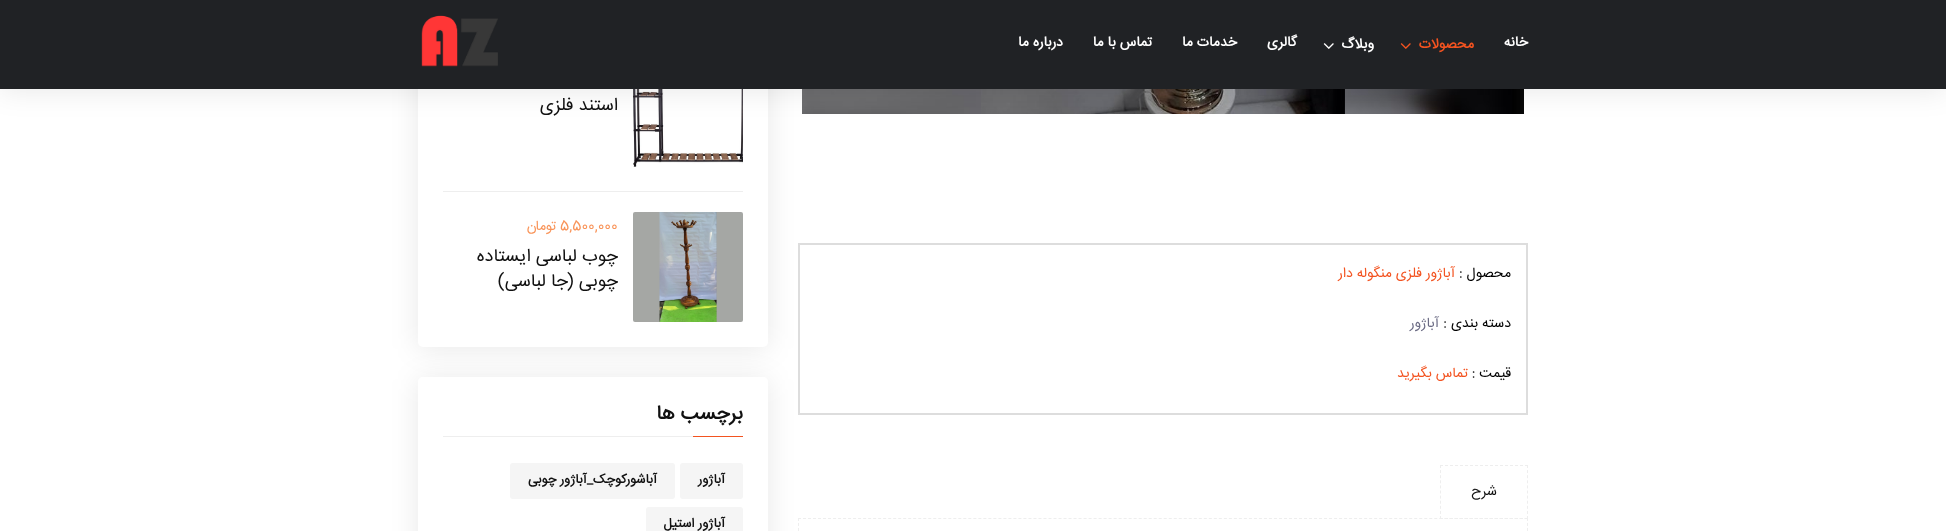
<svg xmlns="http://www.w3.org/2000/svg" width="1946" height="531">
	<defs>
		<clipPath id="clip1"><path d="M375 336H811V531H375ZM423 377H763C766 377 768 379 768 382V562C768 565 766 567 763 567H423C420 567 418 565 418 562V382C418 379 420 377 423 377Z" clip-rule="evenodd" /></clipPath>
	</defs>
	<rect width="100%" height="100%" fill="#FFFFFF" />
	<image x="802" y="89" width="722" height="25" href="assets/img4.png" />
	<rect x="799" y="244" width="728" height="170" fill="none" stroke="#DDDDDD" stroke-width="2" />
	<rect x="418" y="-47" width="350" height="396" rx="5" fill="#000000" fill-opacity="0.09" filter="blur(14px)" />
	<path d="M1440 465.5H1528" fill="none" stroke="#EEEEEE" stroke-dasharray="3 2" />
	<path d="M1527.5 465V519" fill="none" stroke="#EEEEEE" stroke-dasharray="3 2.1" />
	<path d="M1440 518.5H1528" fill="none" stroke="#EEEEEE" stroke-dasharray="3 2" />
	<path d="M1440.5 465V519" fill="none" stroke="#EEEEEE" stroke-dasharray="3 2.1" />
	<path d="M798 518.5H1528" fill="none" stroke="#EEEEEE" stroke-dasharray="3 2.01" />
	<path d="M798.5 518V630" fill="none" stroke="#EEEEEE" stroke-dasharray="3 1.95" />
	<g clip-path="url(#clip1)">
		<rect x="418" y="379" width="350" height="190" rx="5" fill="#000000" fill-opacity="0.09" filter="blur(14px)" />
	</g>
	<rect x="418" y="-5" width="350" height="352" rx="5" fill="#FFFFFF" />
	<image x="633" y="89" width="110" height="78" href="assets/img5.png" />
	<rect x="0" y="2" width="1946" height="89" fill="#000000" fill-opacity="0.09" filter="blur(14px)" />
	<rect x="0" y="0" width="1946" height="89" fill="#202225" />
	<text x="1528" y="46" font-family="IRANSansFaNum" font-size="14" font-weight="700" direction="rtl" fill="#FFFFFF">خانه</text>
	<text x="1474" y="48" font-family="IRANSansFaNum" font-size="14" font-weight="700" direction="rtl" fill="#F35320">محصولات</text>
	<image x="1400" y="43" width="11" height="6" href="assets/img1.png" />
	<text x="1374" y="48" font-family="IRANSansFaNum" font-size="14" font-weight="700" direction="rtl" fill="#FFFFFF">وبلاگ</text>
	<image x="1323" y="43" width="11" height="6" href="assets/img2.png" />
	<g font-family="IRANSansFaNum" font-size="14" font-weight="700" direction="rtl" fill="#FFFFFF">
		<text x="1297" y="46">گالری</text>
		<text x="1237" y="46">خدمات ما</text>
		<text x="1152" y="46">تماس با ما</text>
		<text x="1063" y="46">درباره ما</text>
	</g>
	<image x="421" y="15" width="77" height="52" href="assets/img3.png" />
	<text x="1511" y="277" font-family="IRANSansFaNum" font-size="14" direction="rtl" fill="#000000">محصول :</text>
	<text x="1455" y="277" font-family="IRANSansFaNum" font-size="14" direction="rtl" fill="#F35320">آباژور فلزی منگوله دار</text>
	<text x="1511" y="327" font-family="IRANSansFaNum" font-size="14" direction="rtl" fill="#000000">دسته بندی :</text>
	<text x="1439" y="327" font-family="IRANSansFaNum" font-size="14" direction="rtl" fill="#6B6B84">آباژور</text>
	<text x="1511" y="377" font-family="IRANSansFaNum" font-size="14" direction="rtl" fill="#000000">قیمت :</text>
	<text x="1468" y="377" font-family="IRANSansFaNum" font-size="14" direction="rtl" fill="#F35320">تماس بگیرید</text>
	<text x="1497" y="495" font-family="IRANSansFaNum" font-size="14" direction="rtl" fill="#111111">شرح</text>
	<path d="M1527.5 518V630" fill="none" stroke="#EEEEEE" stroke-dasharray="3 1.95" />
	<rect x="443" y="191" width="300" height="1" fill="#EEEEEE" />
	<text x="618" y="110" font-family="IRANSansFaNum" font-size="18" direction="rtl" fill="#111111">استند فلزی</text>
	<image x="633" y="212" width="110" height="110" href="assets/img6.png" />
	<text x="560" y="230" font-family="IRANSansFaNum" font-size="14" fill="#F99459">5,500,000</text>
	<text x="557" y="230" font-family="IRANSansFaNum" font-size="14" direction="rtl" fill="#F99459">تومان</text>
	<g font-family="IRANSansFaNum" font-size="18" direction="rtl" fill="#111111">
		<text x="618" y="261">چوب لباسی ایستاده</text>
		<text x="618" y="286">چوبی (جا لباسی)</text>
	</g>
	<rect x="443" y="436" width="250" height="1" fill="#EEEEEE" />
	<text x="743" y="419" font-family="IRANSansFaNum" font-size="20" font-weight="700" direction="rtl" fill="#111111">برچسب ها</text>
	<rect x="693" y="436" width="50" height="1" fill="#F35320" />
	<rect x="680" y="463" width="63" height="36" rx="3" fill="#F5F5F5" />
	<text x="725" y="483" font-family="IRANSansFaNum" font-size="13" font-weight="700" direction="rtl" fill="#111111">آباژور</text>
	<rect x="510" y="463" width="165" height="36" rx="3" fill="#F5F5F5" />
	<text x="657" y="483" font-family="IRANSansFaNum" font-size="13" font-weight="700" direction="rtl" fill="#111111">آباشورکوچک_آباژور چوبی</text>
	<rect x="646" y="507" width="97" height="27" rx="3" fill="#F5F5F5" />
	<text x="725" y="527" font-family="IRANSansFaNum" font-size="13" font-weight="700" direction="rtl" fill="#111111">آباژور استیل</text>
</svg>
